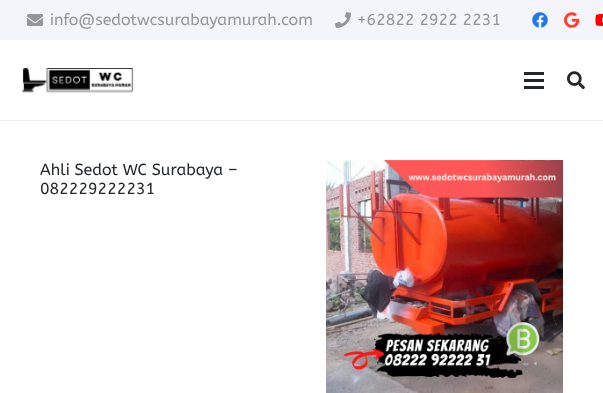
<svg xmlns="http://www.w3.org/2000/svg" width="603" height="393">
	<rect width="100%" height="100%" fill="#FFFFFF" />
	<rect x="0" y="0" width="603" height="40" fill="#F3F5FB" />
	<image x="27" y="14" width="16" height="12" href="assets/img1.png" />
	<text x="50" y="25" font-family="ABeeZee" font-size="16" fill="#949799">info@sedotwcsurabayamurah.com</text>
	<image x="335" y="12" width="16" height="16" href="assets/img2.png" />
	<text x="357" y="25" font-family="ABeeZee" font-size="16" fill="#949799">+62822 2922 2231</text>
	<image x="532" y="12" width="16" height="16" href="assets/img3.png" />
	<image x="564" y="12" width="16" height="16" href="assets/img4.png" />
	<image x="595" y="14" width="8" height="12" href="assets/img5.png" />
	<rect x="0" y="120" width="603" height="1" fill="#EBEBEB" />
	<image x="22" y="68" width="112" height="25" href="assets/img6.png" />
	<rect x="524" y="79" width="20" height="3" fill="#25282B" />
	<rect x="524" y="72" width="20" height="3" fill="#25282B" />
	<rect x="524" y="86" width="20" height="3" fill="#25282B" />
	<image x="567" y="71" width="18" height="19" href="assets/img7.png" />
	<g font-family="ABeeZee" font-size="16" fill="#25282B">
		<text x="40" y="175">Ahli Sedot WC Surabaya –</text>
		<text x="40" y="194">082229222231</text>
	</g>
	<image x="326" y="160" width="237" height="233" href="assets/img8.png" />
</svg>
